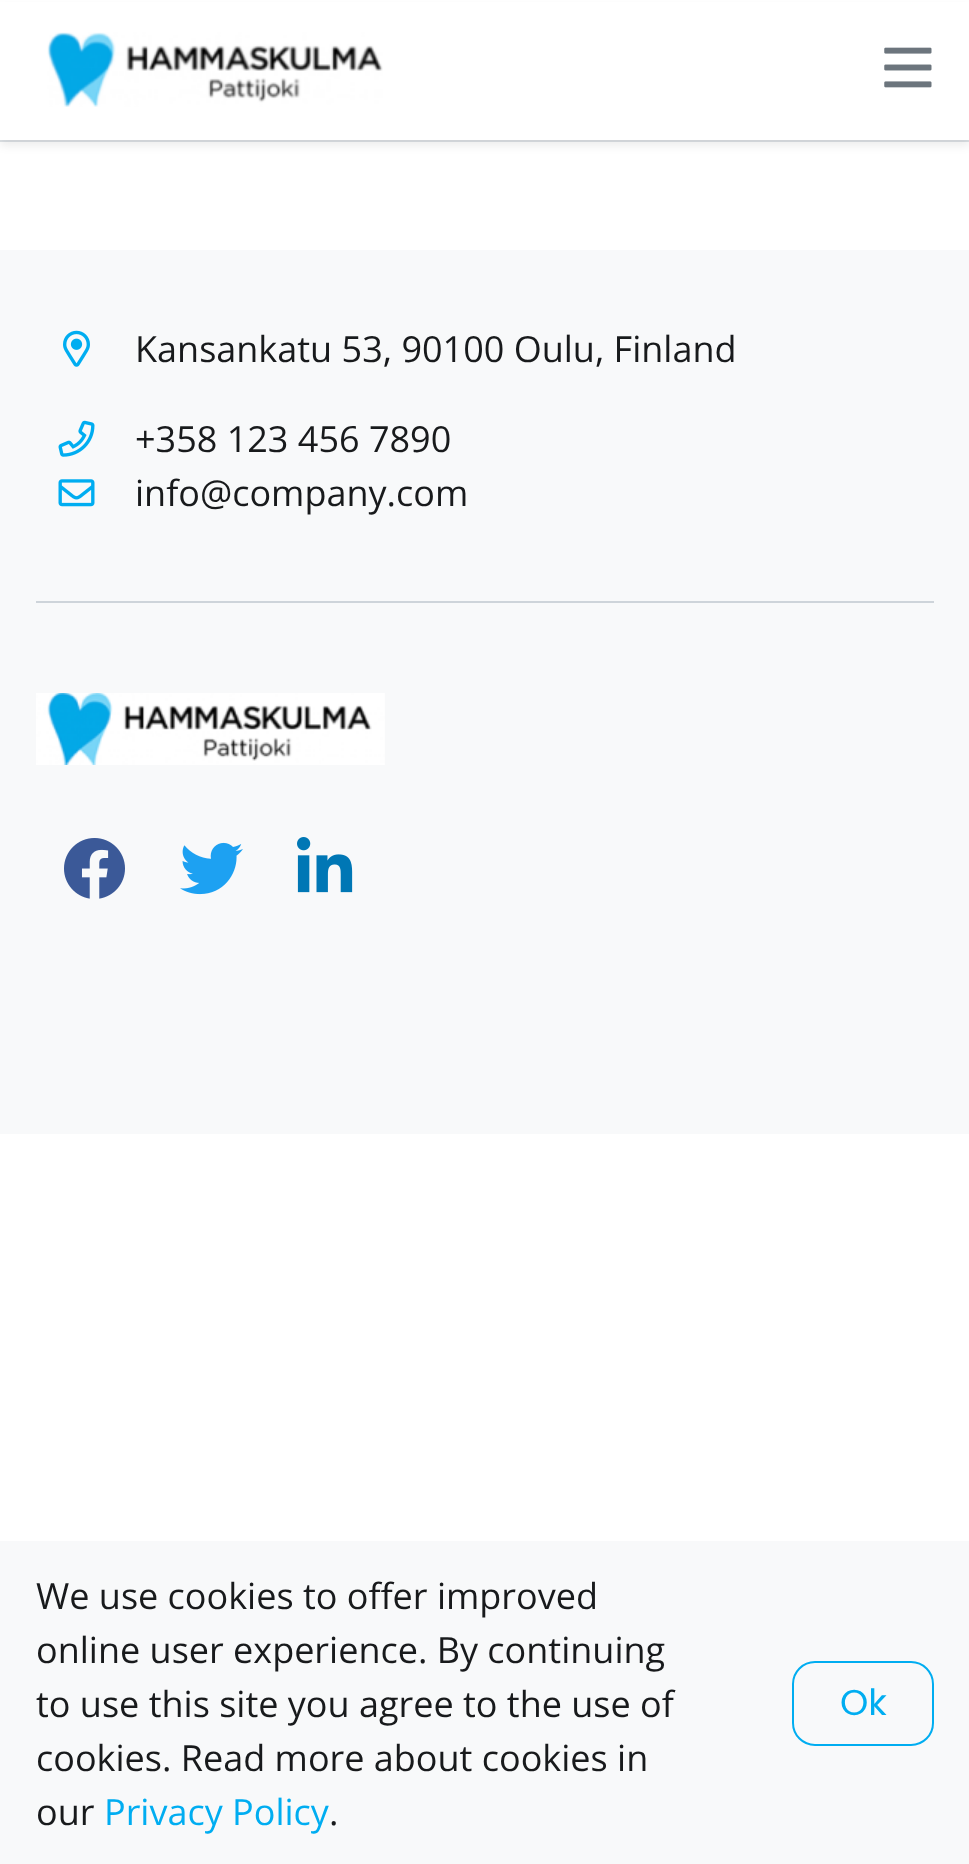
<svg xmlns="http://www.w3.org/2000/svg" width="969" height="1864">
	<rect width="100%" height="100%" fill="#FFFFFF" />
	<rect x="0" y="140" width="969" height="2" fill="#DEE2E6" />
	<rect x="0" y="7" width="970" height="139" fill="#000000" fill-opacity="0.07" filter="blur(4.5px)" />
	<rect x="0" y="2" width="969" height="138" fill="#FFFFFF" />
	<image x="47" y="32" width="336" height="75" href="assets/img1.png" />
	<image x="884" y="47" width="48" height="41" href="assets/img2.png" />
	<rect x="0" y="250" width="969" height="884" fill="#F8F9FA" />
	<image x="63" y="330" width="27" height="37" href="assets/img3.png" />
	<text x="135" y="362" font-family="Open Sans" font-size="36" fill="#181A1C">Kansankatu 53, 90100 Oulu, Finland</text>
	<image x="58" y="420" width="37" height="37" href="assets/img4.png" />
	<text x="135" y="452" font-family="Open Sans" font-size="36" fill="#181A1C">+358 123 456 7890</text>
	<image x="58" y="479" width="37" height="28" href="assets/img5.png" />
	<text x="135" y="506" font-family="Open Sans" font-size="36" fill="#181A1C">info@company.com</text>
	<rect x="36" y="601" width="898" height="2" fill="#CED4DA" />
	<image x="36" y="693" width="349" height="72" href="assets/img6.png" />
	<image x="64" y="838" width="61" height="61" href="assets/img7.png" />
	<image x="180" y="842" width="63" height="53" href="assets/img8.png" />
	<image x="297" y="837" width="56" height="56" href="assets/img9.png" />
	<rect x="0" y="1541" width="969" height="323" fill="#F8F9FA" />
	<g font-family="Open Sans" font-size="36" fill="#181A1C">
		<text x="36" y="1609">We use cookies to offer improved</text>
		<text x="36" y="1663">online user experience. By continuing</text>
		<text x="36" y="1717">to use this site you agree to the use of</text>
		<text x="36" y="1771">cookies. Read more about cookies in</text>
		<text x="36" y="1825">our</text>
	</g>
	<text x="104" y="1825" font-family="Open Sans" font-size="36" fill="#00ADF1">Privacy Policy</text>
	<text x="329" y="1825" font-family="Open Sans" font-size="36" fill="#181A1C">.</text>
	<rect x="793" y="1662" width="140" height="83" rx="22" fill="none" stroke="#00ADF1" stroke-width="2" />
	<text x="840" y="1715" font-family="Poppins" font-size="36" fill="#00ADF1">Ok</text>
</svg>
